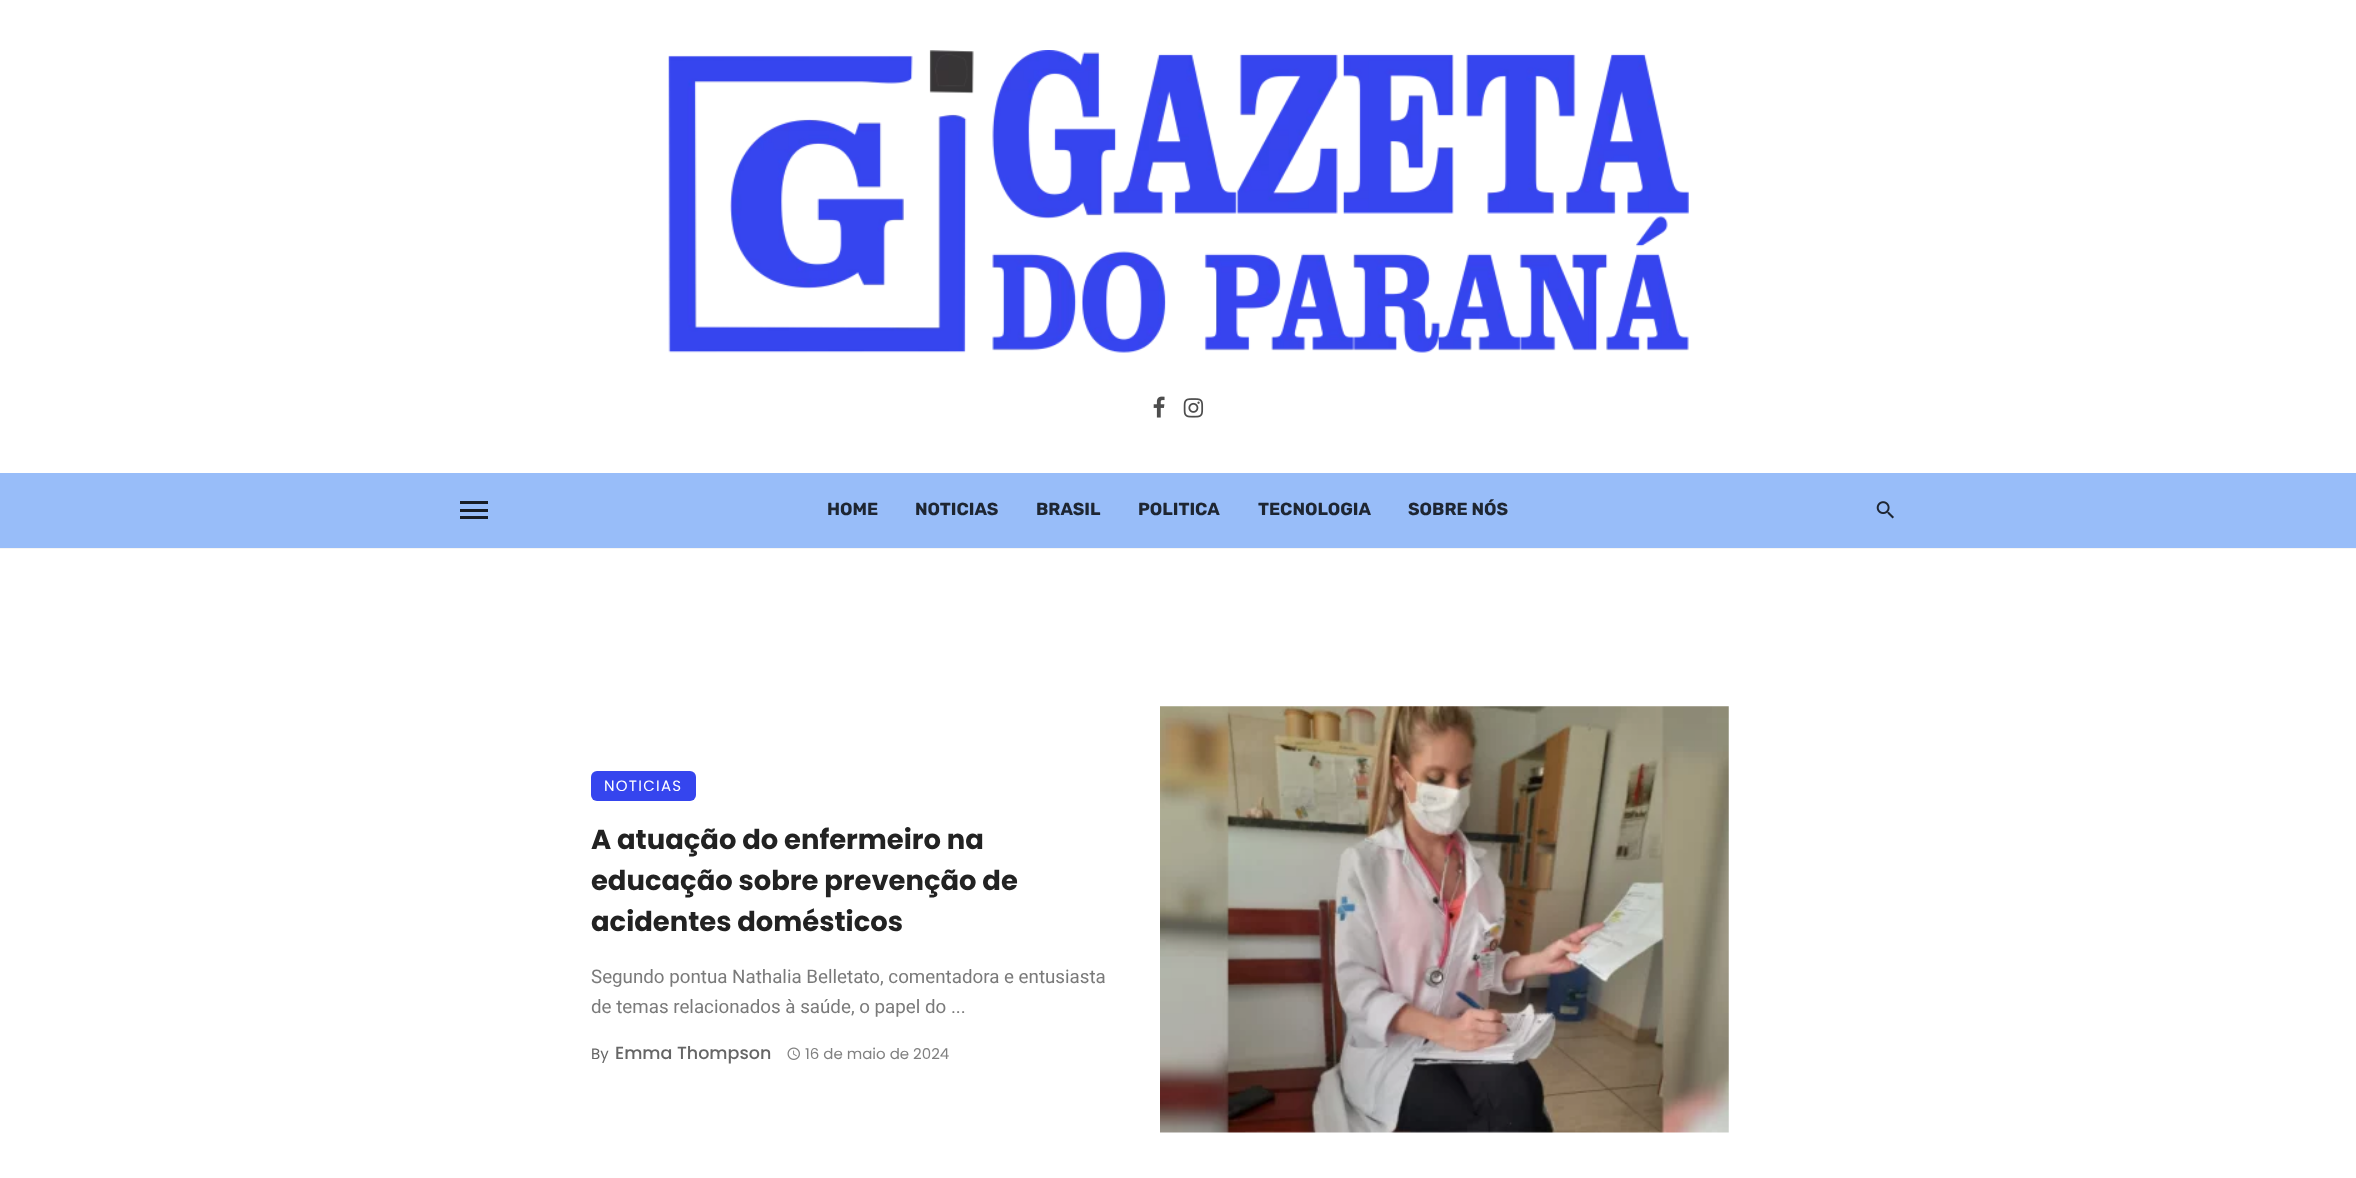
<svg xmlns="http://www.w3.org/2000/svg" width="2356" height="1178">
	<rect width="100%" height="100%" fill="#FFFFFF" />
	<rect x="0" y="548" width="2356" height="1" fill="#F5F5F5" />
	<image x="668" y="50" width="1021" height="303" href="assets/img1.png" />
	<image x="1153" y="396" width="12" height="22" href="assets/img2.png" />
	<image x="1183" y="398" width="21" height="20" href="assets/img3.png" />
	<rect x="0" y="473" width="2356" height="75" fill="#98BDF9" />
	<rect x="460" y="509" width="28" height="3" fill="#171C25" />
	<rect x="460" y="501" width="28" height="3" fill="#171C25" />
	<rect x="460" y="516" width="28" height="3" fill="#171C25" />
	<g font-family="Rubik" font-size="17.5" font-weight="700" fill="#1E2632">
		<text x="827" y="515">HOME</text>
		<text x="915" y="515">NOTICIAS</text>
		<text x="1036" y="515">BRASIL</text>
		<text x="1138" y="515">POLITICA</text>
		<text x="1258" y="515">TECNOLOGIA</text>
		<text x="1408" y="515">SOBRE NÓS</text>
	</g>
	<image x="1876" y="501" width="18" height="18" href="assets/img4.png" />
	<rect x="591" y="771" width="105" height="30" rx="6" fill="#3545EE" />
	<text x="604" y="791" font-family="Poppins" font-size="15" letter-spacing="1.25" fill="#FFFFFF">NOTICIAS</text>
	<g font-family="Poppins" font-size="27.4" font-weight="700" fill="#222222">
		<text x="591" y="849">A atuação do enfermeiro na</text>
		<text x="591" y="890">educação sobre prevenção de</text>
		<text x="591" y="931">acidentes domésticos</text>
	</g>
	<g font-family="Roboto" font-size="18.75" fill="#7A7A7A">
		<text x="591" y="983">Segundo pontua Nathalia Belletato, comentadora e entusiasta</text>
		<text x="591" y="1013">de temas relacionados à saúde, o papel do ...</text>
	</g>
	<text x="591" y="1059" font-family="Poppins" font-size="15" fill="#666666">By</text>
	<text x="615" y="1059" font-family="Poppins" font-size="17.5" font-weight="500" fill="#666666">Emma Thompson</text>
	<image x="787" y="1047" width="13" height="13" href="assets/img5.png" />
	<text x="805" y="1059" font-family="Poppins" font-size="15" fill="#808080">16 de maio de 2024</text>
	<image x="1160" y="706" width="569" height="427" href="assets/img6.png" />
</svg>
